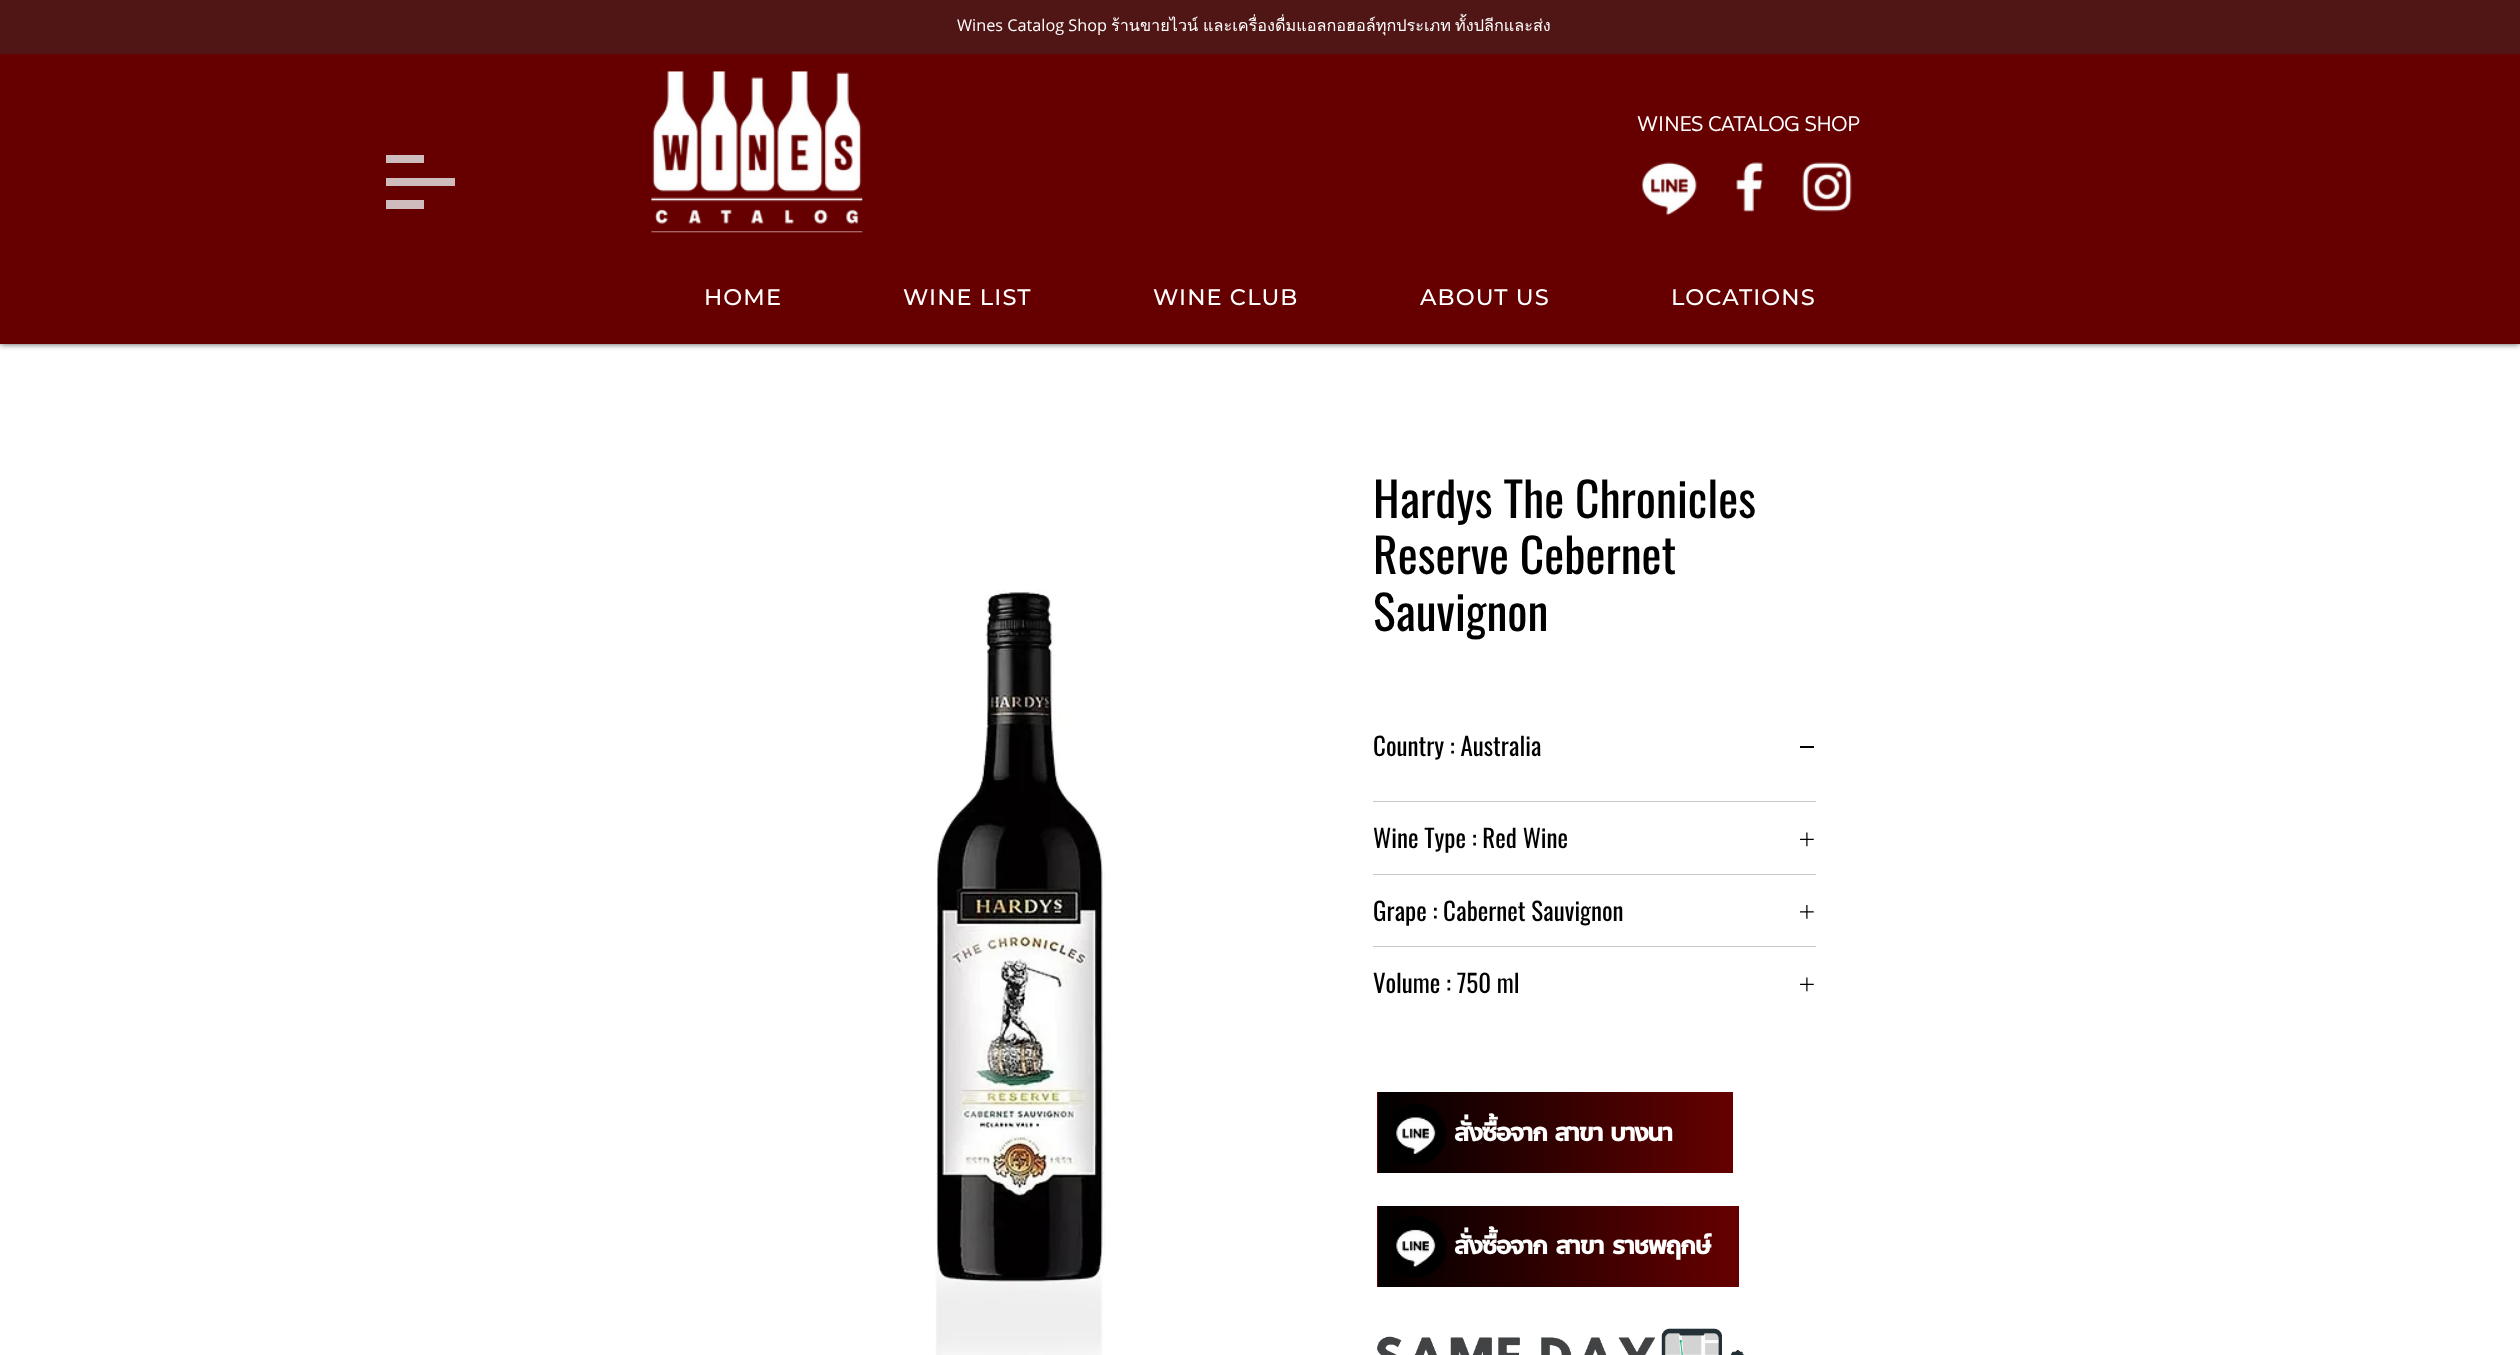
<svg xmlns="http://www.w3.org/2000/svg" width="2520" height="1355">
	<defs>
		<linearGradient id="g1" gradientUnits="userSpaceOnUse" x1="1378" y1="1133" x2="1023" y2="1133"><stop offset="0" stop-color="#660000" /><stop offset="1" stop-color="#000000" /></linearGradient>
		<linearGradient id="g2" gradientUnits="userSpaceOnUse" x1="1733" y1="1133" x2="1378" y2="1133"><stop offset="0" stop-color="#660000" /><stop offset="1" stop-color="#000000" /></linearGradient>
		<linearGradient id="g3" gradientUnits="userSpaceOnUse" x1="1378" y1="1246" x2="1016" y2="1246"><stop offset="0" stop-color="#660000" /><stop offset="1" stop-color="#000000" /></linearGradient>
		<linearGradient id="g4" gradientUnits="userSpaceOnUse" x1="1739" y1="1246" x2="1378" y2="1246"><stop offset="0" stop-color="#660000" /><stop offset="1" stop-color="#000000" /></linearGradient>
	</defs>
	<rect width="100%" height="100%" fill="#FFFFFF" />
	<rect x="0" y="0" width="2520" height="344" fill="#000000" fill-opacity="0.7" filter="blur(3px)" />
	<rect x="0" y="54" width="2520" height="290" fill="#660000" />
	<rect x="0" y="0" width="2520" height="54" fill="#501515" />
	<text x="957" y="31" font-family="Open Sans" font-size="16.25" fill="#FFFFFF">Wines Catalog Shop</text>
	<g font-family="Loma" font-size="16.25" fill="#FFFFFF">
		<text x="1111" y="31">ร้านขายไวน์</text>
		<text x="1203" y="31">และเครื่องดื่มแอลกอฮอล์ทุกประเภท</text>
		<text x="1455" y="31">ทั้งปลีกและส่ง</text>
	</g>
	<image x="651" y="71" width="212" height="162" href="assets/img1.png" />
	<text x="1637" y="131" font-family="'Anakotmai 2'" font-size="20" font-weight="700" fill="#FFFFFF">WINES CATALOG SHOP</text>
	<path d="M424 163H386V155H424ZM386 178V186H455V178ZM386 209H424V200H386Z" fill="#CFBCBC" />
	<image x="1641" y="162" width="56" height="54" href="assets/img2.png" />
	<image x="1736" y="162" width="27" height="50" href="assets/img3.png" />
	<image x="1802" y="162" width="50" height="50" href="assets/img4.png" />
	<g font-family="Montserrat" font-size="22.5" font-weight="500" letter-spacing="1.1" fill="#FFFFFF">
		<text x="704" y="305">HOME</text>
		<text x="903" y="305">WINE LIST</text>
		<text x="1153" y="305">WINE CLUB</text>
		<text x="1420" y="305">ABOUT US</text>
		<text x="1671" y="305">LOCATIONS</text>
	</g>
	<image x="935" y="590" width="170" height="765" href="assets/img5.png" />
	<g font-family="Oswald" font-size="47.5" fill="#000000">
		<text x="1373" y="518">Hardys The Chronicles</text>
		<text x="1373" y="574">Reserve Cebernet</text>
		<text x="1373" y="631">Sauvignon</text>
	</g>
	<rect x="1373" y="801" width="443" height="1" fill="#C7C7C7" />
	<text x="1373" y="756" font-family="Oswald" font-size="25" fill="#000000">Country : Australia</text>
	<rect x="1800" y="746" width="14" height="2" fill="#000000" />
	<rect x="1373" y="874" width="443" height="1" fill="#C7C7C7" />
	<text x="1373" y="848" font-family="Oswald" font-size="25" fill="#000000">Wine Type : Red Wine</text>
	<image x="1800" y="832" width="14" height="15" href="assets/img6.png" />
	<rect x="1373" y="946" width="443" height="1" fill="#C7C7C7" />
	<text x="1373" y="921" font-family="Oswald" font-size="25" fill="#000000">Grape : Cabernet Sauvignon</text>
	<image x="1800" y="905" width="14" height="14" href="assets/img7.png" />
	<text x="1373" y="993" font-family="Oswald" font-size="25" fill="#000000">Volume : 750 ml</text>
	<image x="1800" y="977" width="14" height="15" href="assets/img6.png" />
	<rect x="1377" y="1091" width="1" height="83" fill="url(#g1)" />
	<rect x="1378" y="1092" width="355" height="81" fill="url(#g2)" />
	<rect x="1376.5" y="1091.5" width="357" height="82" fill="none" stroke="#FFFFFF" />
	<image x="1394" y="1104" width="53" height="61" href="assets/img8.png" />
	<text x="1454" y="1141" word-spacing="2" font-family="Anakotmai" font-size="25" font-weight="700" letter-spacing="-1.25" fill="#FFFFFF">สั่งซื้อจาก สาขา บางนา</text>
	<rect x="1377" y="1205" width="1" height="83" fill="url(#g3)" />
	<rect x="1378" y="1206" width="361" height="81" fill="url(#g4)" />
	<rect x="1376.5" y="1205.5" width="363" height="82" fill="none" stroke="#FFFFFF" />
	<image x="1394" y="1216" width="53" height="62" href="assets/img9.png" />
	<text x="1454" y="1254" word-spacing="3" font-family="Anakotmai" font-size="25" font-weight="700" letter-spacing="-1.25" fill="#FFFFFF">สั่งซื้อจาก สาขา ราชพฤกษ์</text>
	<image x="1377" y="1328" width="368" height="27" href="assets/img10.png" />
</svg>
